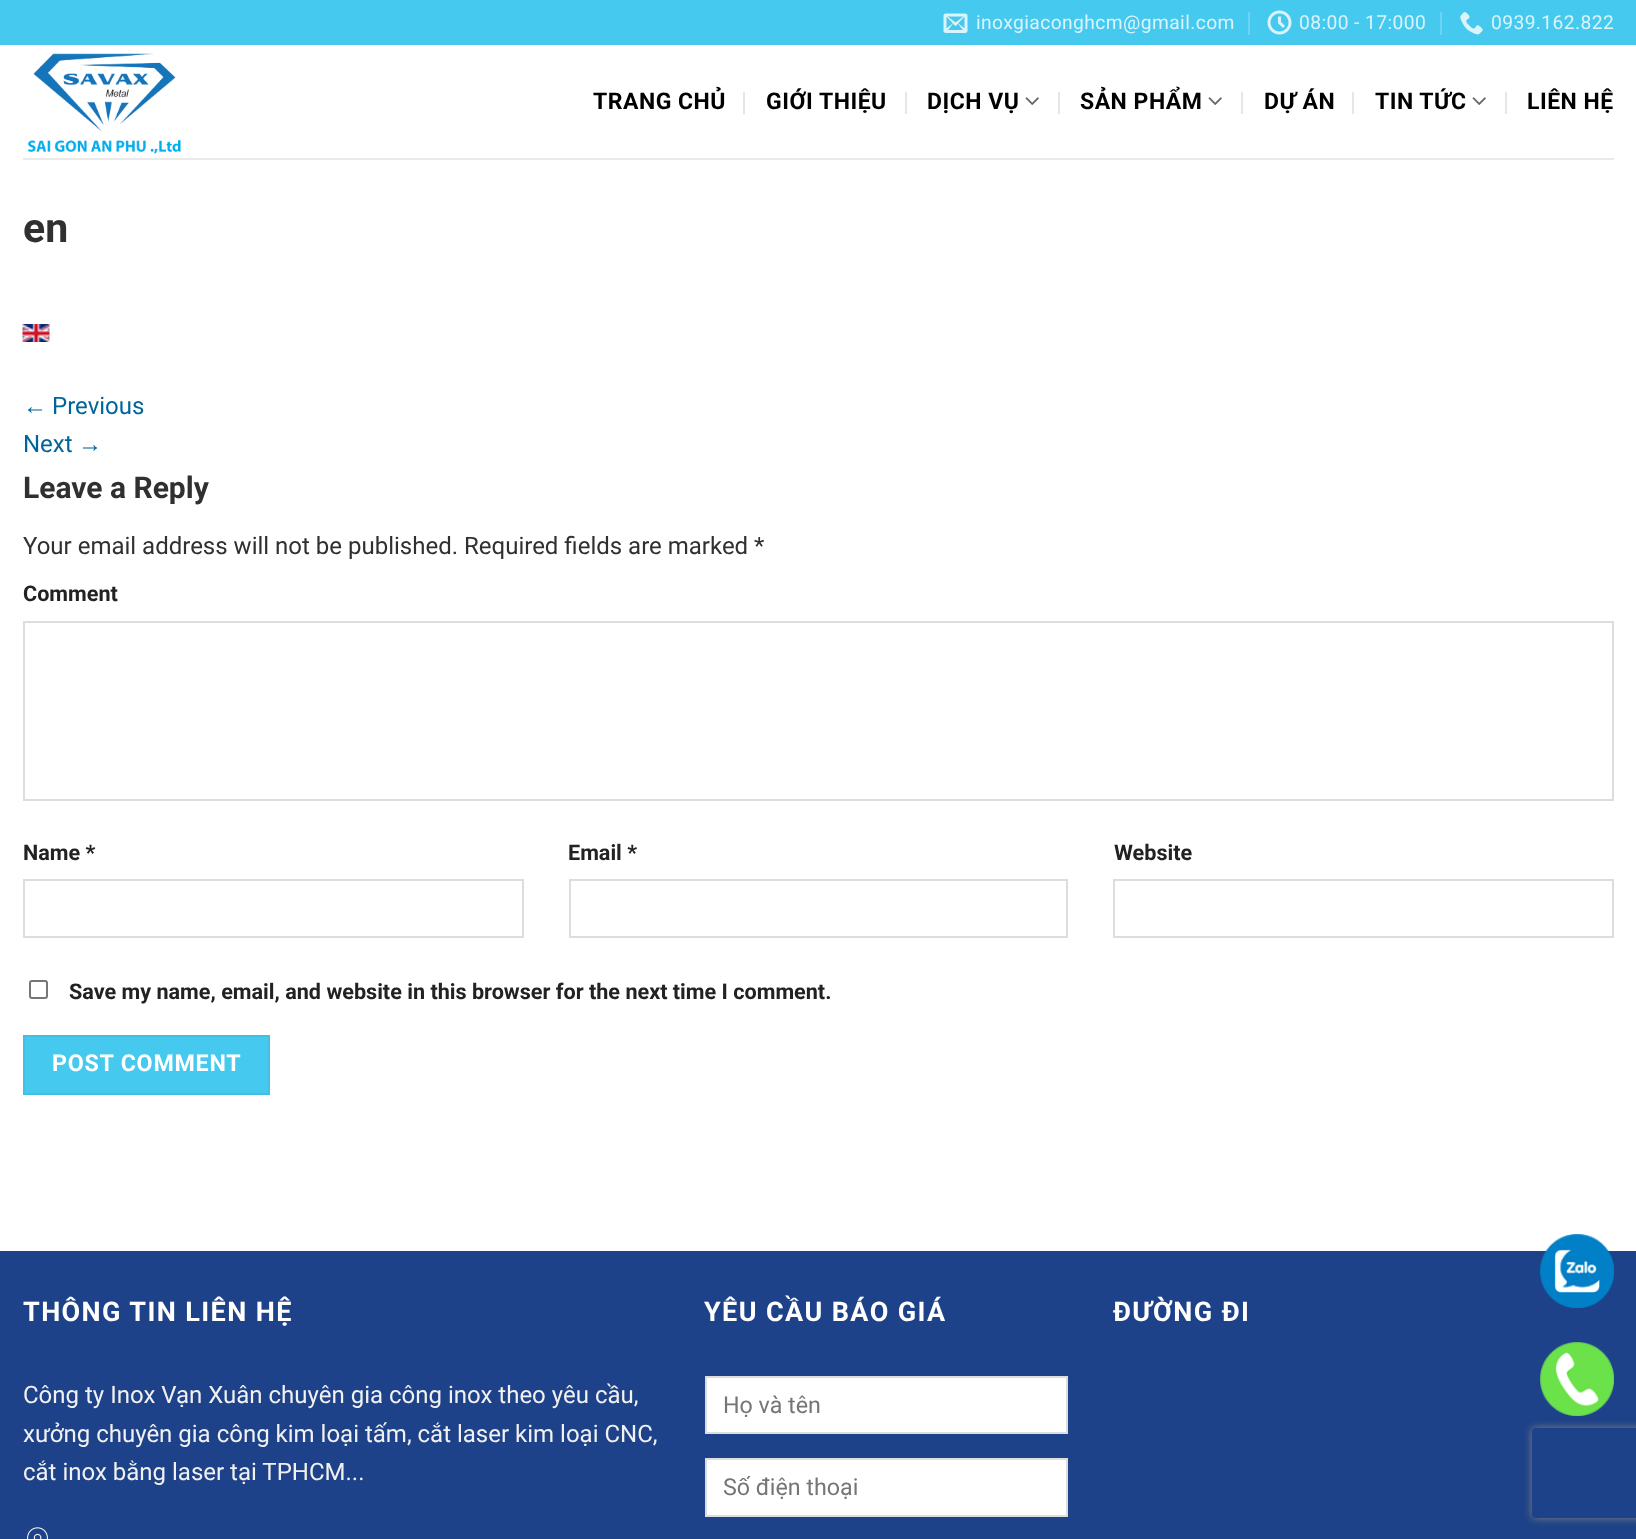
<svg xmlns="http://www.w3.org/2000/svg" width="1636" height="1539">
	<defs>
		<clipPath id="clip1"><path d="M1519 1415H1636V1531H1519ZM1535 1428H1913C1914.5 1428 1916 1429.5 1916 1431V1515C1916 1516.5 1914.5 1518 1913 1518H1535C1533.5 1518 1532 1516.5 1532 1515V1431C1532 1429.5 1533.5 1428 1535 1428Z" clip-rule="evenodd" /></clipPath>
	</defs>
	<rect width="100%" height="100%" fill="#FFFFFF" />
	<rect x="0" y="0" width="1636" height="45" fill="#45C9EF" />
	<image x="943" y="13" width="25" height="20" href="assets/img1.png" />
	<text x="976" y="29" font-family="Roboto" font-size="19.25" letter-spacing="0.4" fill="#DAF4FC">inoxgiaconghcm@gmail.com</text>
	<rect x="1248" y="12" width="2" height="23" fill="#6AD4F2" />
	<image x="1267" y="10" width="25" height="25" href="assets/img2.png" />
	<text x="1299" y="29" font-family="Roboto" font-size="19.25" letter-spacing="0.4" fill="#DAF4FC">08:00 - 17:000</text>
	<rect x="1440" y="12" width="2" height="23" fill="#6AD4F2" />
	<image x="1460" y="12" width="23" height="23" href="assets/img3.png" />
	<text x="1491" y="29" font-family="Roboto" font-size="19.25" letter-spacing="0.4" fill="#DAF4FC">0939.162.822</text>
	<image x="27" y="53" width="154" height="101" href="assets/img4.png" />
	<text x="593" y="109" font-family="Roboto" font-size="23" font-weight="700" letter-spacing="0.5" fill="#000000">TRANG CHỦ</text>
	<rect x="743" y="92" width="2" height="22" fill="#E6E6E6" />
	<text x="766" y="109" font-family="Roboto" font-size="23" font-weight="700" letter-spacing="0.5" fill="#000000">GIỚI THIỆU</text>
	<rect x="905" y="92" width="2" height="22" fill="#E6E6E6" />
	<text x="927" y="109" font-family="Roboto" font-size="23" font-weight="700" letter-spacing="0.5" fill="#000000">DỊCH VỤ</text>
	<image x="1025" y="97" width="14" height="8" href="assets/img5.png" />
	<rect x="1058" y="92" width="2" height="22" fill="#E6E6E6" />
	<text x="1080" y="109" font-family="Roboto" font-size="23" font-weight="700" letter-spacing="0.5" fill="#000000">SẢN PHẨM</text>
	<image x="1208" y="97" width="14" height="8" href="assets/img5.png" />
	<rect x="1241" y="92" width="2" height="22" fill="#E6E6E6" />
	<text x="1264" y="109" font-family="Roboto" font-size="23" font-weight="700" letter-spacing="0.5" fill="#000000">DỰ ÁN</text>
	<rect x="1352" y="92" width="2" height="22" fill="#E6E6E6" />
	<text x="1375" y="109" font-family="Roboto" font-size="23" font-weight="700" letter-spacing="0.5" fill="#000000">TIN TỨC</text>
	<image x="1472" y="97" width="14" height="8" href="assets/img5.png" />
	<rect x="1505" y="92" width="2" height="22" fill="#E6E6E6" />
	<text x="1527" y="109" font-family="Roboto" font-size="23" font-weight="700" letter-spacing="0.5" fill="#000000">LIÊN HỆ</text>
	<rect x="23" y="158" width="1591" height="2" fill="#EAEAEA" />
	<text x="23" y="242" font-family="Roboto" font-size="41" font-weight="700" fill="#303030">en</text>
	<image x="22" y="324" width="28" height="18" href="assets/img6.png" />
	<text x="23" y="414" font-family="Liberation Sans" font-size="24" fill="#006699">←</text>
	<g font-family="Roboto" font-size="24" fill="#006699">
		<text x="52" y="414">Previous</text>
		<text x="23" y="452">Next</text>
	</g>
	<text x="78" y="452" font-family="Liberation Sans" font-size="24" fill="#006699">→</text>
	<text x="23" y="498" font-family="Roboto" font-size="30" font-weight="700" fill="#303030">Leave a Reply</text>
	<text x="23" y="554" font-family="Roboto" font-size="24" fill="#303030">Your email address will not be published. Required fields are marked *</text>
	<text x="23" y="601" font-family="Roboto" font-size="21.6" font-weight="700" fill="#222222">Comment</text>
	<rect x="24" y="622" width="1589" height="178" fill="none" stroke="#DDDDDD" stroke-width="2" />
	<text x="23" y="860" font-family="Roboto" font-size="21.6" font-weight="700" fill="#222222">Name *</text>
	<rect x="24" y="880" width="499" height="57" fill="none" stroke="#DDDDDD" stroke-width="2" />
	<text x="568" y="860" font-family="Roboto" font-size="21.6" font-weight="700" fill="#222222">Email *</text>
	<rect x="570" y="880" width="497" height="57" fill="none" stroke="#DDDDDD" stroke-width="2" />
	<text x="1114" y="860" font-family="Roboto" font-size="21.6" font-weight="700" fill="#222222">Website</text>
	<rect x="1114" y="880" width="499" height="57" fill="none" stroke="#DDDDDD" stroke-width="2" />
	<rect x="30" y="981" width="17" height="17" rx="2" fill="none" stroke="#767676" stroke-width="2" />
	<text x="69" y="999" font-family="Roboto" font-size="21.6" font-weight="700" fill="#222222">Save my name, email, and website in this browser for the next time I comment.</text>
	<rect x="24" y="1036" width="245" height="58" fill="#45C9EF" stroke="#42BFE3" stroke-width="2" />
	<text x="52" y="1071" font-family="Roboto" font-size="23.25" font-weight="700" letter-spacing="0.75" fill="#FFFFFF">POST COMMENT</text>
	<rect x="0" y="1251" width="1636" height="288" fill="#1D4289" />
	<text x="23" y="1321" font-family="Roboto" font-size="27" font-weight="700" letter-spacing="1.4" fill="#FFFFFF">THÔNG TIN LIÊN HỆ</text>
	<g font-family="Roboto" font-size="24" fill="#F1F1F1">
		<text x="23" y="1403">Công ty Inox Vạn Xuân chuyên gia công inox theo yêu cầu,</text>
		<text x="23" y="1442">xưởng chuyên gia công kim loại tấm, cắt laser kim loại CNC,</text>
		<text x="23" y="1480">cắt inox bằng laser tại TPHCM...</text>
	</g>
	<image x="27" y="1527" width="21" height="12" href="assets/img7.png" />
	<text x="704" y="1321" font-family="Roboto" font-size="27" font-weight="700" letter-spacing="1.4" fill="#FFFFFF">YÊU CẦU BÁO GIÁ</text>
	<rect x="706" y="1377" width="361" height="56" fill="#FFFFFF" stroke="#DDDDDD" stroke-width="2" />
	<text x="723" y="1413" font-family="Roboto" font-size="23.25" fill="#757575">Họ và tên</text>
	<rect x="706" y="1459" width="361" height="57" fill="#FFFFFF" stroke="#DDDDDD" stroke-width="2" />
	<text x="723" y="1495" font-family="Roboto" font-size="23.25" fill="#757575">Số điện thoại</text>
	<text x="1113" y="1321" font-family="Roboto" font-size="27" font-weight="700" letter-spacing="1.4" fill="#FFFFFF">ĐƯỜNG ĐI</text>
	<image x="1540" y="1234" width="74" height="74" href="assets/img8.png" />
	<g clip-path="url(#clip1)">
		<rect x="1532" y="1428" width="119" height="90" rx="3" fill="#808080" filter="blur(4px)" />
	</g>
	<image x="1540" y="1342" width="74" height="74" href="assets/img9.png" />
</svg>
